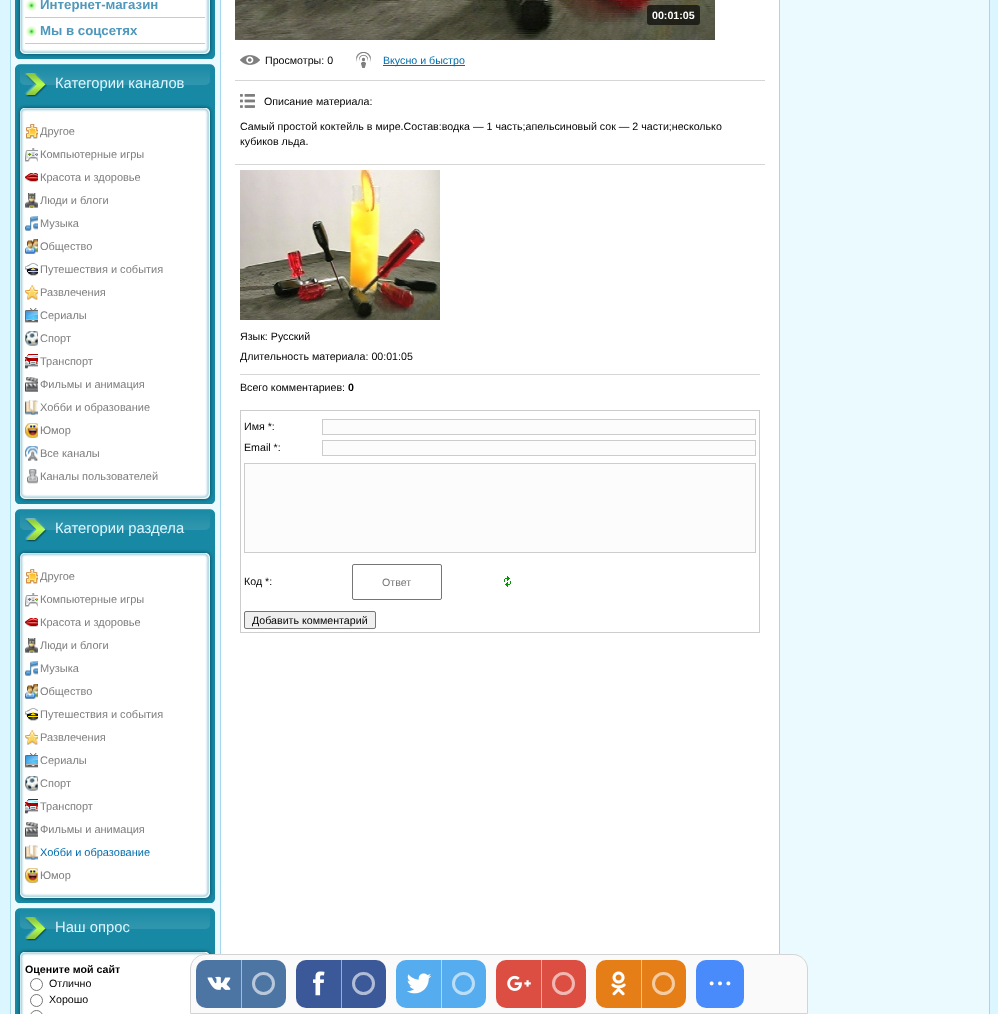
<svg xmlns="http://www.w3.org/2000/svg" width="998" height="1014">
	<rect width="100%" height="100%" fill="#DCF6FF" />
	<image x="10" y="0" width="215" height="1014" href="assets/img1.png" />
	<image x="15" y="0" width="200" height="59" href="assets/img2.png" />
	<image x="25" y="0" width="12" height="11" href="assets/img3.png" />
	<rect x="25" y="17" width="180" height="1" fill="#A2D7EC" />
	<text x="40" y="9" font-family="Liberation Sans" font-size="13.25" font-weight="700" fill="#4F98BC">Интернет-магазин</text>
	<image x="25" y="25" width="12" height="12" href="assets/img4.png" />
	<rect x="25" y="43" width="180" height="1" fill="#A2D7EC" />
	<text x="40" y="35" font-family="Liberation Sans" font-size="13.25" font-weight="700" fill="#4F98BC">Мы в соцсетях</text>
	<image x="15" y="104" width="200" height="400" href="assets/img5.png" />
	<rect x="15" y="97" width="200" height="7" fill="#1789A4" />
	<image x="15" y="64" width="200" height="33" href="assets/img6.png" />
	<text x="55" y="88" font-family="Liberation Sans" font-size="14.75" fill="#DCF6FF">Категории каналов</text>
	<image x="17" y="104" width="196" height="13" href="assets/img7.png" />
	<image x="26" y="124" width="12" height="15" href="assets/img8.png" />
	<text x="40" y="135" font-family="Liberation Sans" font-size="11" fill="#7D7D7D">Другое</text>
	<image x="25" y="148" width="13" height="14" href="assets/img9.png" />
	<text x="40" y="158" font-family="Liberation Sans" font-size="11" fill="#7D7D7D">Компьютерные игры</text>
	<image x="25" y="173" width="13" height="9" href="assets/img10.png" />
	<text x="40" y="181" font-family="Liberation Sans" font-size="11" fill="#7D7D7D">Красота и здоровье</text>
	<image x="25" y="193" width="13" height="15" href="assets/img11.png" />
	<text x="40" y="204" font-family="Liberation Sans" font-size="11" fill="#7D7D7D">Люди и блоги</text>
	<image x="25" y="216" width="13" height="15" href="assets/img12.png" />
	<text x="40" y="227" font-family="Liberation Sans" font-size="11" fill="#7D7D7D">Музыка</text>
	<image x="25" y="239" width="13" height="15" href="assets/img13.png" />
	<text x="40" y="250" font-family="Liberation Sans" font-size="11" fill="#7D7D7D">Общество</text>
	<image x="25" y="263" width="13" height="13" href="assets/img14.png" />
	<text x="40" y="273" font-family="Liberation Sans" font-size="11" fill="#7D7D7D">Путешествия и события</text>
	<image x="25" y="285" width="13" height="15" href="assets/img15.png" />
	<text x="40" y="296" font-family="Liberation Sans" font-size="11" fill="#7D7D7D">Развлечения</text>
	<image x="25" y="308" width="13" height="15" href="assets/img16.png" />
	<text x="40" y="319" font-family="Liberation Sans" font-size="11" fill="#7D7D7D">Сериалы</text>
	<image x="25" y="331" width="13" height="15" href="assets/img17.png" />
	<text x="40" y="342" font-family="Liberation Sans" font-size="11" fill="#7D7D7D">Спорт</text>
	<image x="25" y="354" width="13" height="15" href="assets/img18.png" />
	<text x="40" y="365" font-family="Liberation Sans" font-size="11" fill="#7D7D7D">Транспорт</text>
	<image x="25" y="377" width="13" height="15" href="assets/img19.png" />
	<text x="40" y="388" font-family="Liberation Sans" font-size="11" fill="#7D7D7D">Фильмы и анимация</text>
	<image x="25" y="400" width="13" height="15" href="assets/img20.png" />
	<text x="40" y="411" font-family="Liberation Sans" font-size="11" fill="#7D7D7D">Хобби и образование</text>
	<image x="25" y="423" width="13" height="15" href="assets/img21.png" />
	<text x="40" y="434" font-family="Liberation Sans" font-size="11" fill="#7D7D7D">Юмор</text>
	<image x="25" y="446" width="13" height="15" href="assets/img22.png" />
	<text x="40" y="457" font-family="Liberation Sans" font-size="11" fill="#7D7D7D">Все каналы</text>
	<image x="27" y="469" width="11" height="15" href="assets/img23.png" />
	<text x="40" y="480" font-family="Liberation Sans" font-size="11" fill="#7D7D7D">Каналы пользователей</text>
	<image x="15" y="549" width="200" height="354" href="assets/img24.png" />
	<rect x="15" y="542" width="200" height="7" fill="#1789A4" />
	<image x="15" y="509" width="200" height="33" href="assets/img6.png" />
	<text x="55" y="533" font-family="Liberation Sans" font-size="14.75" fill="#DCF6FF">Категории раздела</text>
	<image x="17" y="549" width="196" height="13" href="assets/img7.png" />
	<image x="26" y="569" width="12" height="15" href="assets/img8.png" />
	<text x="40" y="580" font-family="Liberation Sans" font-size="11" fill="#7D7D7D">Другое</text>
	<image x="25" y="593" width="13" height="14" href="assets/img9.png" />
	<text x="40" y="603" font-family="Liberation Sans" font-size="11" fill="#7D7D7D">Компьютерные игры</text>
	<image x="25" y="618" width="13" height="9" href="assets/img10.png" />
	<text x="40" y="626" font-family="Liberation Sans" font-size="11" fill="#7D7D7D">Красота и здоровье</text>
	<image x="25" y="638" width="13" height="15" href="assets/img11.png" />
	<text x="40" y="649" font-family="Liberation Sans" font-size="11" fill="#7D7D7D">Люди и блоги</text>
	<image x="25" y="661" width="13" height="15" href="assets/img12.png" />
	<text x="40" y="672" font-family="Liberation Sans" font-size="11" fill="#7D7D7D">Музыка</text>
	<image x="25" y="684" width="13" height="15" href="assets/img13.png" />
	<text x="40" y="695" font-family="Liberation Sans" font-size="11" fill="#7D7D7D">Общество</text>
	<image x="25" y="708" width="13" height="13" href="assets/img14.png" />
	<text x="40" y="718" font-family="Liberation Sans" font-size="11" fill="#7D7D7D">Путешествия и события</text>
	<image x="25" y="730" width="13" height="15" href="assets/img15.png" />
	<text x="40" y="741" font-family="Liberation Sans" font-size="11" fill="#7D7D7D">Развлечения</text>
	<image x="25" y="753" width="13" height="15" href="assets/img16.png" />
	<text x="40" y="764" font-family="Liberation Sans" font-size="11" fill="#7D7D7D">Сериалы</text>
	<image x="25" y="776" width="13" height="15" href="assets/img17.png" />
	<text x="40" y="787" font-family="Liberation Sans" font-size="11" fill="#7D7D7D">Спорт</text>
	<image x="25" y="799" width="13" height="15" href="assets/img18.png" />
	<text x="40" y="810" font-family="Liberation Sans" font-size="11" fill="#7D7D7D">Транспорт</text>
	<image x="25" y="822" width="13" height="15" href="assets/img19.png" />
	<text x="40" y="833" font-family="Liberation Sans" font-size="11" fill="#7D7D7D">Фильмы и анимация</text>
	<image x="25" y="845" width="13" height="15" href="assets/img20.png" />
	<text x="40" y="856" font-family="Liberation Sans" font-size="11" fill="#016CAC">Хобби и образование</text>
	<image x="25" y="868" width="13" height="15" href="assets/img21.png" />
	<text x="40" y="879" font-family="Liberation Sans" font-size="11" fill="#7D7D7D">Юмор</text>
	<image x="15" y="948" width="200" height="66" href="assets/img25.png" />
	<rect x="15" y="941" width="200" height="7" fill="#1789A4" />
	<image x="15" y="908" width="200" height="33" href="assets/img6.png" />
	<text x="55" y="932" font-family="Liberation Sans" font-size="14.75" fill="#DCF6FF">Наш опрос</text>
	<image x="17" y="948" width="196" height="13" href="assets/img7.png" />
	<text x="25" y="973" font-family="Liberation Sans" font-size="10.65" font-weight="700" fill="#000000">Оцените мой сайт</text>
	<circle cx="36.5" cy="984.5" r="6" fill="none" stroke="#767676" />
	<text x="49" y="987" font-family="Liberation Sans" font-size="10.65" fill="#000000">Отлично</text>
	<circle cx="36.5" cy="1000.5" r="6" fill="none" stroke="#767676" />
	<text x="49" y="1003" font-family="Liberation Sans" font-size="10.65" fill="#000000">Хорошо</text>
	<rect x="30.5" y="1010.5" width="12" height="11" rx="6" fill="none" stroke="#767676" />
	<rect x="225" y="0" width="550" height="954" fill="#FFFFFF" />
	<image x="235" y="0" width="480" height="40" href="assets/img26.png" />
	<rect x="647" y="5" width="53" height="20" rx="3" fill="#000000" fill-opacity="0.63" />
	<text x="652" y="19" font-family="Liberation Sans" font-size="10.65" font-weight="700" fill="#FFFFFF">00:01:05</text>
	<image x="240" y="55" width="20" height="10" href="assets/img27.png" />
	<text x="265" y="64" font-family="Liberation Sans" font-size="10.65" fill="#000000">Просмотры: 0</text>
	<image x="356" y="52" width="15" height="16" href="assets/img28.png" />
	<rect x="383" y="65" width="82" height="1" fill="#0069A9" />
	<text x="383" y="64" font-family="Liberation Sans" font-size="10.65" fill="#016CAC">Вкусно и быстро</text>
	<rect x="235" y="80" width="530" height="1" fill="#D6D6D6" />
	<image x="240" y="94" width="15" height="14" href="assets/img29.png" />
	<g font-family="Liberation Sans" font-size="10.65" fill="#000000">
		<text x="264" y="105">Описание материала:</text>
		<text x="240" y="130">Самый простой коктейль в мире.Состав:водка — 1 часть;апельсиновый сок — 2 части;несколько</text>
		<text x="240" y="145">кубиков льда.</text>
	</g>
	<rect x="235" y="164" width="530" height="1" fill="#D6D6D6" />
	<image x="240" y="170" width="200" height="150" href="assets/img30.png" />
	<g font-family="Liberation Sans" font-size="10.65" fill="#000000">
		<text x="240" y="340">Язык: Русский</text>
		<text x="240" y="360">Длительность материала: 00:01:05</text>
	</g>
	<rect x="240" y="374" width="520" height="1" fill="#D6D6D6" />
	<text x="240" y="391" font-family="Liberation Sans" font-size="10.65" fill="#000000">Всего комментариев:</text>
	<text x="348" y="391" font-family="Liberation Sans" font-size="10.65" font-weight="700" fill="#000000">0</text>
	<rect x="240.5" y="410.5" width="519" height="222" fill="none" stroke="#CCCCCC" />
	<text x="244" y="430" font-family="Liberation Sans" font-size="10.65" fill="#000000">Имя *:</text>
	<rect x="322.5" y="419.5" width="433" height="15" fill="#FCFCFC" stroke="#CCCCCC" />
	<text x="244" y="451" font-family="Liberation Sans" font-size="10.65" fill="#000000">Email *:</text>
	<rect x="322.5" y="440.5" width="433" height="15" fill="#FCFCFC" stroke="#CCCCCC" />
	<rect x="244.5" y="463.5" width="511" height="89" fill="#FCFCFC" stroke="#CCCCCC" />
	<text x="244" y="585" font-family="Liberation Sans" font-size="10.65" fill="#000000">Код *:</text>
	<rect x="352.5" y="564.5" width="89" height="35" rx="1.5" fill="none" stroke="#767676" />
	<text x="382" y="586" font-family="Liberation Sans" font-size="10.65" fill="#757575">Ответ</text>
	<image x="504" y="576" width="7" height="11" href="assets/img31.png" />
	<rect x="244.5" y="611.5" width="131" height="17" rx="1.5" fill="#EFEFEF" stroke="#767676" />
	<text x="252" y="624" font-family="Liberation Sans" font-size="10.65" fill="#000000">Добавить комментарий</text>
	<image x="775" y="0" width="215" height="1014" href="assets/img32.png" />
	<path d="M205 954.5H793C801 954.5 807.5 961 807.5 969V1013.5H190.5V969C190.5 961 197 954.5 205 954.5Z" fill="#FAFAFA" stroke="#D4D4D4" />
	<rect x="196" y="960" width="90" height="48" rx="10" fill="#4D75A3" />
	<image x="207" y="976" width="24" height="14" href="assets/img33.png" />
	<rect x="241" y="960" width="1" height="48" fill="#A6BAD1" />
	<circle cx="263.5" cy="983.5" r="10" fill="none" stroke="#B8C8DA" stroke-width="3" />
	<rect x="296" y="960" width="90" height="48" rx="10" fill="#3B5998" />
	<image x="313" y="971" width="12" height="25" href="assets/img34.png" />
	<rect x="341" y="960" width="1" height="48" fill="#9DACCC" />
	<circle cx="363.5" cy="983.5" r="10" fill="none" stroke="#B1BDD6" stroke-width="3" />
	<rect x="396" y="960" width="90" height="48" rx="10" fill="#55ACEE" />
	<image x="407" y="973" width="25" height="21" href="assets/img35.png" />
	<rect x="441" y="960" width="1" height="48" fill="#AAD6F7" />
	<circle cx="463.5" cy="983.5" r="10" fill="none" stroke="#BBDEF8" stroke-width="3" />
	<rect x="496" y="960" width="90" height="48" rx="10" fill="#DC4E41" />
	<image x="507" y="975" width="24" height="16" href="assets/img36.png" />
	<rect x="541" y="960" width="1" height="48" fill="#EEA7A0" />
	<circle cx="563.5" cy="983.5" r="10" fill="none" stroke="#F1B8B3" stroke-width="3" />
	<rect x="596" y="960" width="90" height="48" rx="10" fill="#E67E17" />
	<image x="611" y="971" width="15" height="25" href="assets/img37.png" />
	<rect x="641" y="960" width="1" height="48" fill="#F3BF8B" />
	<circle cx="663.5" cy="983.5" r="10" fill="none" stroke="#F5CBA2" stroke-width="3" />
	<rect x="696" y="960" width="48" height="48" rx="10" fill="#498BFA" />
	<image x="709" y="981" width="22" height="5" href="assets/img38.png" />
</svg>
